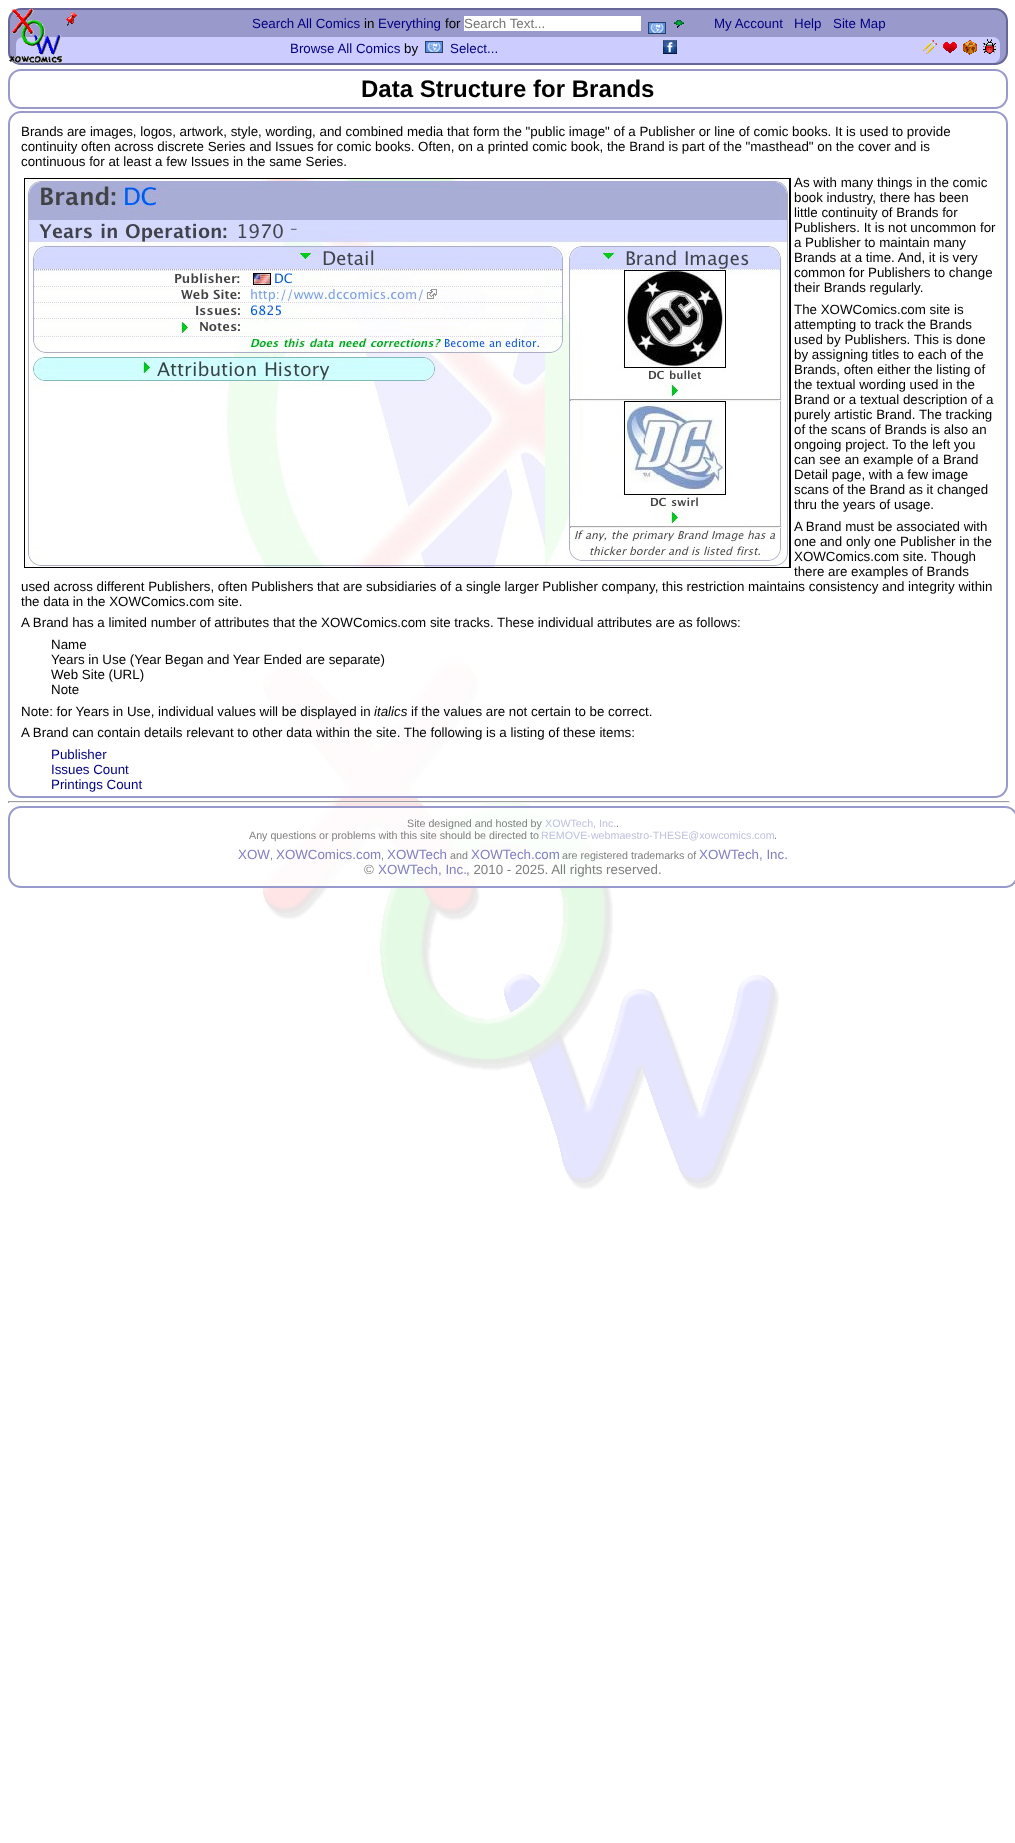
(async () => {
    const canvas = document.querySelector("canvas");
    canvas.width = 1015;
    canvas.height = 1843;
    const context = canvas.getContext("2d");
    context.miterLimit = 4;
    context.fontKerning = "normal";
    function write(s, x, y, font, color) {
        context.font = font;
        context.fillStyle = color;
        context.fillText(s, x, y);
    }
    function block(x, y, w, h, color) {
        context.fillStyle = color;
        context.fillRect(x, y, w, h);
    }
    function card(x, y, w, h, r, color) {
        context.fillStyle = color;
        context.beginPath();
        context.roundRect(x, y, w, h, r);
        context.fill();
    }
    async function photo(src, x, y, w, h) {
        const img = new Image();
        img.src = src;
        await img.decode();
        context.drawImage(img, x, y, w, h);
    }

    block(0, 0, 1015, 1843, "rgb(255, 255, 255)");
    await photo("media/1.png", 263, 659, 516, 531);
    context.fillStyle = "rgb(153, 153, 204)";
    context.beginPath();
    context.roundRect(9, 9, 998, 55, 12);
    context.fill();
    context.strokeStyle = "rgb(102, 102, 153)";
    context.lineWidth = 2;
    context.stroke();
    card(16, 37, 984, 26, 7, "rgb(204, 204, 255)");
    await photo("media/2.png", 9, 8, 54, 56);
    await photo("media/3.png", 66, 12, 11, 14);
    write("Search All Comics", 252, 28, "13.33px Liberation Sans", "rgb(0, 0, 128)");
    write("in", 364, 28, "13.33px Liberation Sans", "rgb(0, 0, 0)");
    write("Everything", 378, 28, "13.33px Liberation Sans", "rgb(0, 0, 128)");
    write("for", 445, 28, "13.33px Liberation Sans", "rgb(0, 0, 0)");
    block(464, 16, 177, 15, "rgb(255, 255, 255)");
    write("Search Text...", 464, 28, "13.33px Liberation Sans", "rgb(117, 117, 117)");
    await photo("media/4.png", 648, 22, 18, 12);
    await photo("media/5.png", 674, 20, 10, 8);
    write("My Account", 714, 28, "13.33px Liberation Sans", "rgb(0, 0, 128)");
    write("Help", 794, 28, "13.33px Liberation Sans", "rgb(0, 0, 128)");
    write("Site Map", 833, 28, "13.33px Liberation Sans", "rgb(0, 0, 128)");
    write("Browse All Comics", 290, 53, "13.33px Liberation Sans", "rgb(0, 0, 128)");
    write("by", 404, 53, "13.33px Liberation Sans", "rgb(0, 0, 0)");
    await photo("media/4.png", 425, 41, 18, 12);
    write("Select...", 450, 53, "13.33px Liberation Sans", "rgb(0, 0, 128)");
    await photo("media/6.png", 663, 40, 14, 14);
    await photo("media/7.png", 923, 40, 14, 14);
    await photo("media/8.png", 943, 42, 14, 11);
    await photo("media/9.png", 963, 40, 14, 15);
    await photo("media/10.png", 983, 39, 13, 15);
    context.beginPath();
    context.roundRect(9, 70, 998, 38, 12);
    context.strokeStyle = "rgb(153, 153, 204)";
    context.stroke();
    write("Data Structure for Brands", 361, 97, "bold 24px Liberation Sans", "rgb(0, 0, 0)");
    context.fillStyle = "rgba(255, 255, 255, 0.85)";
    context.beginPath();
    context.roundRect(9, 112, 998, 685, 12);
    context.fill();
    context.stroke();
    write("Brands are images, logos, artwork, style, wording, and combined media that form the \"public image\" of a Publisher or line of comic books. It is used to provide", 21, 136, "13.33px Liberation Sans", "rgb(0, 0, 0)");
    write("continuity often across discrete Series and Issues for comic books. Often, on a printed comic book, the Brand is part of the \"masthead\" on the cover and is", 21, 151, "13.33px Liberation Sans", "rgb(0, 0, 0)");
    write("continuous for at least a few Issues in the same Series.", 21, 166, "13.33px Liberation Sans", "rgb(0, 0, 0)");
    context.strokeStyle = "rgb(0, 0, 0)";
    context.lineWidth = 1;
    context.strokeRect(24.5, 178.5, 766, 389);
    await photo("media/11.png", 25, 179, 765, 388);
    write("As with many things in the comic", 794, 187, "13.33px Liberation Sans", "rgb(0, 0, 0)");
    write("book industry, there has been", 794, 202, "13.33px Liberation Sans", "rgb(0, 0, 0)");
    write("little continuity of Brands for", 794, 217, "13.33px Liberation Sans", "rgb(0, 0, 0)");
    write("Publishers. It is not uncommon for", 794, 232, "13.33px Liberation Sans", "rgb(0, 0, 0)");
    write("a Publisher to maintain many", 794, 247, "13.33px Liberation Sans", "rgb(0, 0, 0)");
    write("Brands at a time. And, it is very", 794, 262, "13.33px Liberation Sans", "rgb(0, 0, 0)");
    write("common for Publishers to change", 794, 277, "13.33px Liberation Sans", "rgb(0, 0, 0)");
    write("their Brands regularly.", 794, 292, "13.33px Liberation Sans", "rgb(0, 0, 0)");
    write("The XOWComics.com site is", 794, 314, "13.33px Liberation Sans", "rgb(0, 0, 0)");
    write("attempting to track the Brands", 794, 329, "13.33px Liberation Sans", "rgb(0, 0, 0)");
    write("used by Publishers. This is done", 794, 344, "13.33px Liberation Sans", "rgb(0, 0, 0)");
    write("by assigning titles to each of the", 794, 359, "13.33px Liberation Sans", "rgb(0, 0, 0)");
    write("Brands, often either the listing of", 794, 374, "13.33px Liberation Sans", "rgb(0, 0, 0)");
    write("the textual wording used in the", 794, 389, "13.33px Liberation Sans", "rgb(0, 0, 0)");
    write("Brand or a textual description of a", 794, 404, "13.33px Liberation Sans", "rgb(0, 0, 0)");
    write("purely artistic Brand. The tracking", 794, 419, "13.33px Liberation Sans", "rgb(0, 0, 0)");
    write("of the scans of Brands is also an", 794, 434, "13.33px Liberation Sans", "rgb(0, 0, 0)");
    write("ongoing project. To the left you", 794, 449, "13.33px Liberation Sans", "rgb(0, 0, 0)");
    write("can see an example of a Brand", 794, 464, "13.33px Liberation Sans", "rgb(0, 0, 0)");
    write("Detail page, with a few image", 794, 479, "13.33px Liberation Sans", "rgb(0, 0, 0)");
    write("scans of the Brand as it changed", 794, 494, "13.33px Liberation Sans", "rgb(0, 0, 0)");
    write("thru the years of usage.", 794, 509, "13.33px Liberation Sans", "rgb(0, 0, 0)");
    write("A Brand must be associated with", 794, 531, "13.33px Liberation Sans", "rgb(0, 0, 0)");
    write("one and only one Publisher in the", 794, 546, "13.33px Liberation Sans", "rgb(0, 0, 0)");
    write("XOWComics.com site. Though", 794, 561, "13.33px Liberation Sans", "rgb(0, 0, 0)");
    write("there are examples of Brands", 794, 576, "13.33px Liberation Sans", "rgb(0, 0, 0)");
    write("used across different Publishers, often Publishers that are subsidiaries of a single larger Publisher company, this restriction maintains consistency and integrity within", 21, 591, "13.33px Liberation Sans", "rgb(0, 0, 0)");
    write("the data in the XOWComics.com site.", 21, 606, "13.33px Liberation Sans", "rgb(0, 0, 0)");
    write("A Brand has a limited number of attributes that the XOWComics.com site tracks. These individual attributes are as follows:", 21, 627, "13.33px Liberation Sans", "rgb(0, 0, 0)");
    write("Name", 51, 649, "13.33px Liberation Sans", "rgb(0, 0, 0)");
    write("Years in Use (Year Began and Year Ended are separate)", 51, 664, "13.33px Liberation Sans", "rgb(0, 0, 0)");
    write("Web Site (URL)", 51, 679, "13.33px Liberation Sans", "rgb(0, 0, 0)");
    write("Note", 51, 694, "13.33px Liberation Sans", "rgb(0, 0, 0)");
    write("Note: for Years in Use, individual values will be displayed in", 21, 716, "13.33px Liberation Sans", "rgb(0, 0, 0)");
    write("italics", 374, 716, "italic 13.33px Liberation Sans", "rgb(0, 0, 0)");
    write("if the values are not certain to be correct.", 411, 716, "13.33px Liberation Sans", "rgb(0, 0, 0)");
    write("A Brand can contain details relevant to other data within the site. The following is a listing of these items:", 21, 737, "13.33px Liberation Sans", "rgb(0, 0, 0)");
    write("Publisher", 51, 759, "13.33px Liberation Sans", "rgb(0, 0, 128)");
    write("Issues Count", 51, 774, "13.33px Liberation Sans", "rgb(0, 0, 128)");
    write("Printings Count", 51, 789, "13.33px Liberation Sans", "rgb(0, 0, 128)");
    block(8, 801, 1002, 1, "rgb(159, 159, 159)");
    block(1009, 801, 1, 2, "rgb(238, 238, 238)");
    block(8, 802, 1002, 1, "rgb(238, 238, 238)");
    block(8, 801, 1, 2, "rgb(159, 159, 159)");
    context.fillStyle = "rgba(255, 255, 255, 0.85)";
    context.beginPath();
    context.roundRect(9, 807, 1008, 80, 12);
    context.fill();
    context.strokeStyle = "rgb(153, 153, 204)";
    context.lineWidth = 2;
    context.stroke();
    write("Site designed and hosted by", 407, 827, "10.7px Liberation Sans", "rgb(126, 127, 126)");
    write("XOWTech, Inc.", 545, 827, "10.7px Liberation Sans", "rgb(190, 191, 222)");
    write(".", 616, 827, "10.7px Liberation Sans", "rgb(126, 127, 126)");
    write("Any questions or problems with this site should be directed to", 249, 839, "10.7px Liberation Sans", "rgb(126, 127, 126)");
    write("REMOVE-webmaestro-THESE@xowcomics.com", 541, 839, "10.7px Liberation Sans", "rgb(190, 191, 222)");
    write(".", 774, 839, "10.7px Liberation Sans", "rgb(126, 127, 126)");
    write("XOW", 238, 859, "13.33px Liberation Sans", "rgb(128, 128, 192)");
    write(",", 270, 859, "10.7px Liberation Sans", "rgb(126, 127, 126)");
    write("XOWComics.com", 276, 859, "13.33px Liberation Sans", "rgb(128, 128, 192)");
    write(",", 381, 859, "10.7px Liberation Sans", "rgb(126, 127, 126)");
    write("XOWTech", 387, 859, "13.33px Liberation Sans", "rgb(128, 128, 192)");
    write("and", 450, 859, "10.7px Liberation Sans", "rgb(126, 127, 126)");
    write("XOWTech.com", 471, 859, "13.33px Liberation Sans", "rgb(128, 128, 192)");
    write("are registered trademarks of", 562, 859, "10.7px Liberation Sans", "rgb(126, 127, 126)");
    write("XOWTech, Inc.", 699, 859, "13.33px Liberation Sans", "rgb(128, 128, 192)");
    write("©", 364, 874, "13.33px Liberation Sans", "rgb(126, 127, 126)");
    write("XOWTech, Inc.", 378, 874, "13.33px Liberation Sans", "rgb(128, 128, 192)");
    write(", 2010 - 2025. All rights reserved.", 466, 874, "13.33px Liberation Sans", "rgb(126, 127, 126)");
})();
